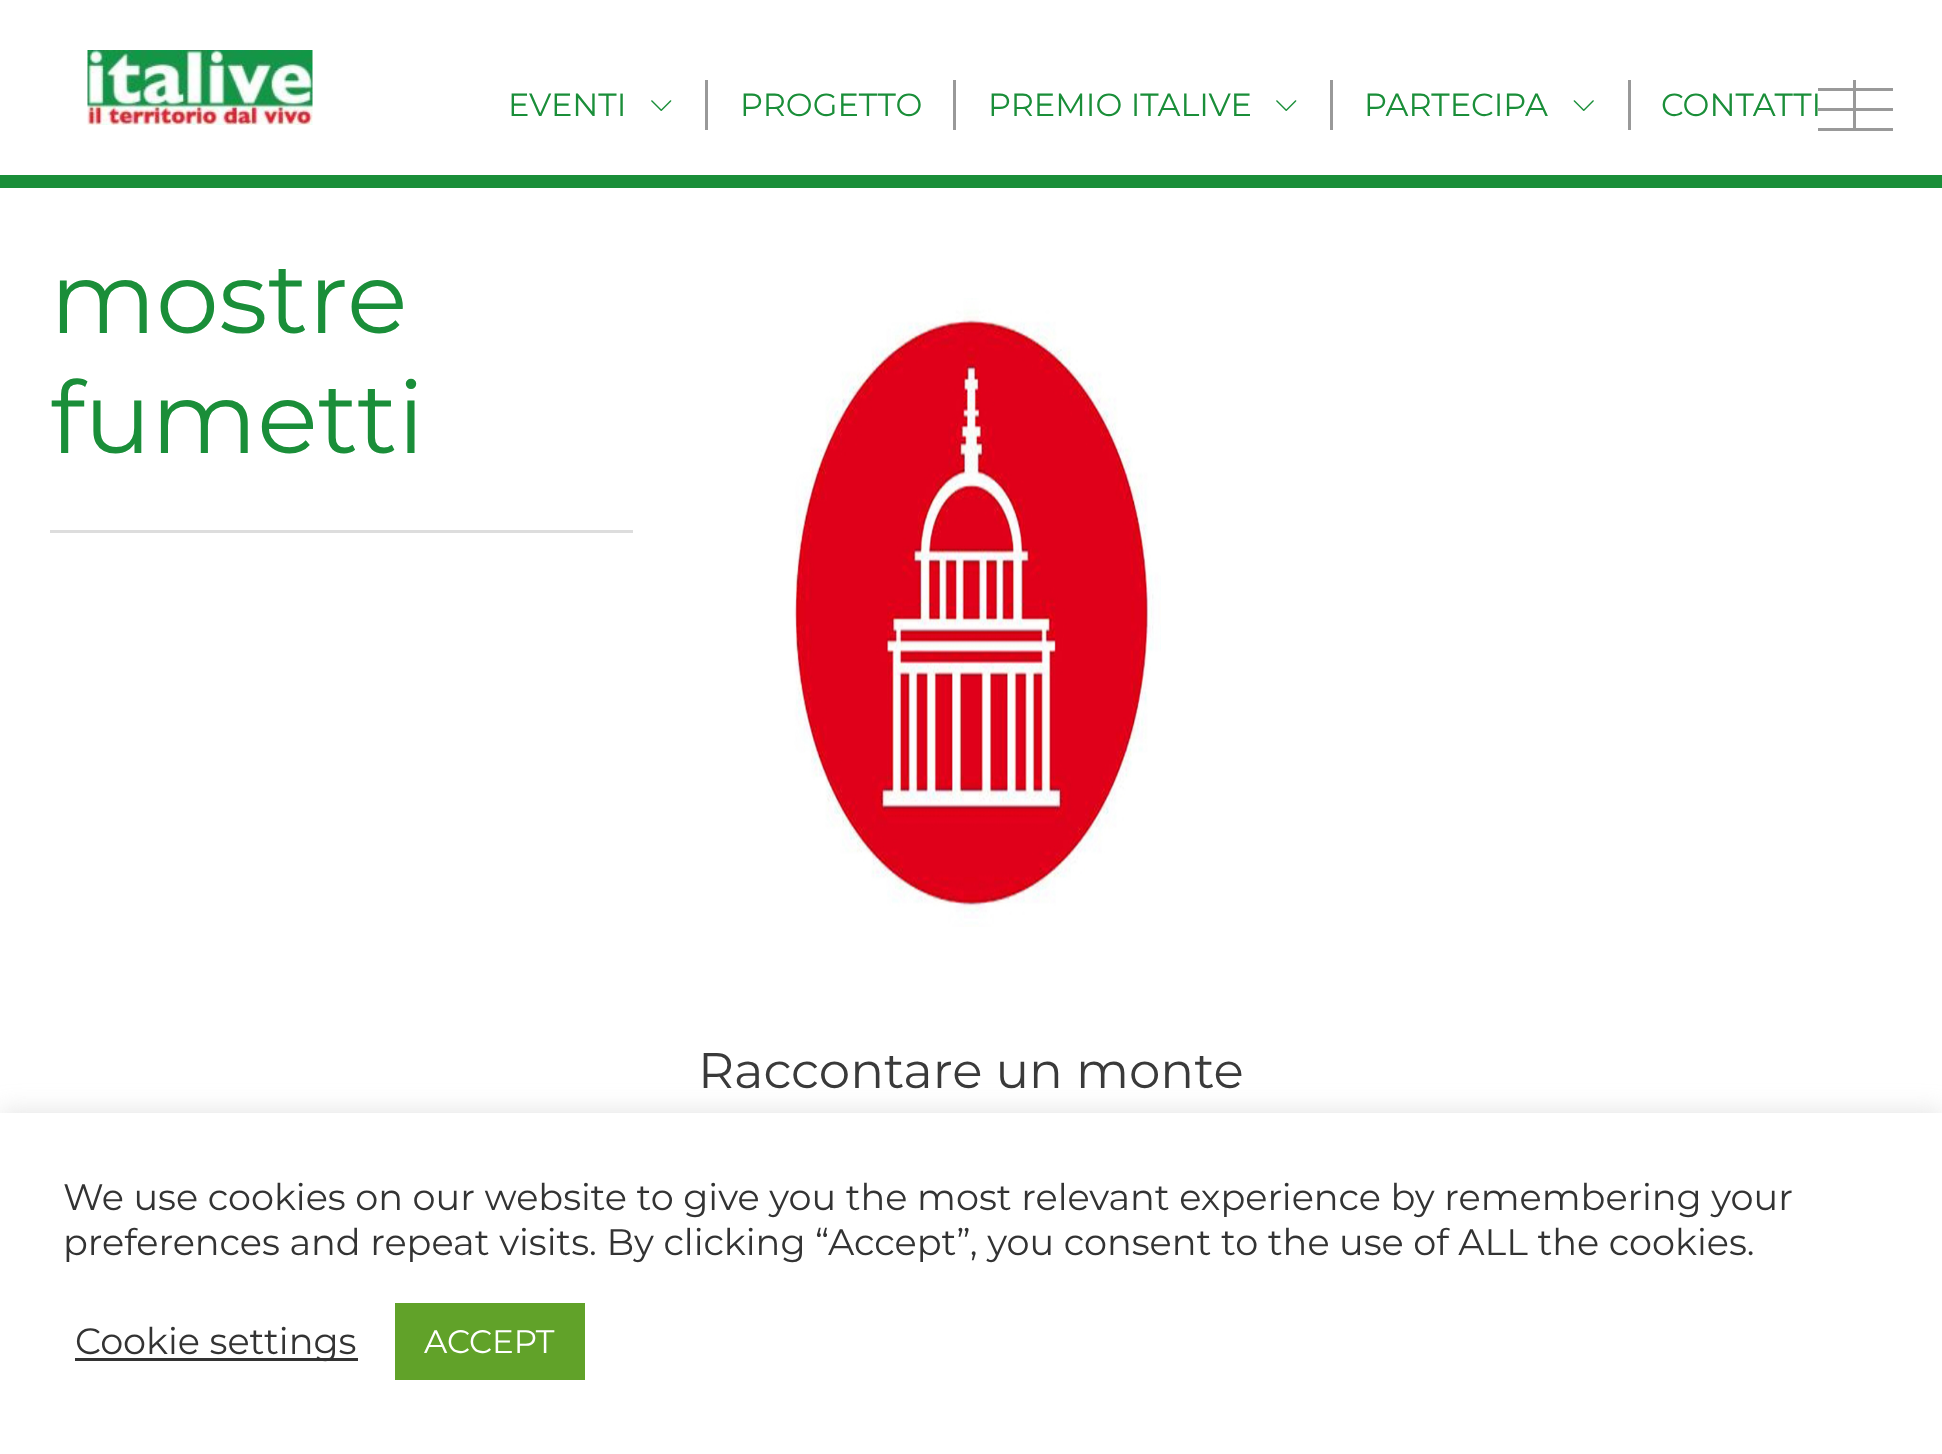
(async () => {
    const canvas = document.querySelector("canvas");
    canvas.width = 1942;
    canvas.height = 1454;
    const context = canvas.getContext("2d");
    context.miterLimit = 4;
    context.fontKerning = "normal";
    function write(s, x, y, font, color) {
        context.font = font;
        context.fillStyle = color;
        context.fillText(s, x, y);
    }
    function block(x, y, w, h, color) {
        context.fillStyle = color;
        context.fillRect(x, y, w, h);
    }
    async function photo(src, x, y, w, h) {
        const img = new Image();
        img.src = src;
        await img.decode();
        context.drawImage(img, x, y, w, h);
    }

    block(0, 0, 1942, 1454, "rgb(255, 255, 255)");
    block(0, 175, 1942, 13, "rgb(26, 142, 57)");
    await photo("media/1.png", 87, 50, 226, 75);
    block(705, 80, 3, 50, "rgb(153, 153, 153)");
    write("EVENTI", 508, 116, "32px Montserrat", "rgb(26, 142, 57)");
    await photo("media/2.png", 651, 100, 21, 11);
    block(953, 80, 3, 50, "rgb(153, 153, 153)");
    write("PROGETTO", 740, 116, "32px Montserrat", "rgb(26, 142, 57)");
    block(1330, 80, 3, 50, "rgb(153, 153, 153)");
    write("PREMIO ITALIVE", 988, 116, "32px Montserrat", "rgb(26, 142, 57)");
    await photo("media/2.png", 1276, 100, 21, 11);
    block(1628, 80, 3, 50, "rgb(153, 153, 153)");
    write("PARTECIPA", 1364, 116, "32px Montserrat", "rgb(26, 142, 57)");
    await photo("media/3.png", 1573, 100, 21, 11);
    block(1853, 80, 3, 50, "rgb(153, 153, 153)");
    write("CONTATTI", 1661, 116, "32px Montserrat", "rgb(26, 142, 57)");
    block(50, 530, 583, 3, "rgb(221, 221, 221)");
    write("mostre", 50, 333, "100px Montserrat", "rgb(26, 142, 57)");
    write("fumetti", 50, 453, "100px Montserrat", "rgb(26, 142, 57)");
    await photo("media/4.png", 794, 298, 367, 629);
    write("Raccontare un monte", 698, 1088, "50px Montserrat", "rgb(58, 58, 58)");
    block(1818, 88, 75, 3, "rgb(153, 153, 153)");
    block(1818, 108, 75, 3, "rgb(153, 153, 153)");
    block(1818, 128, 75, 3, "rgb(153, 153, 153)");
    context.fillStyle = "rgba(172, 171, 171, 0.3)";
    context.filter = "blur(12.5px)";
    context.beginPath();
    context.rect(0, 1110, 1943, 343);
    context.fill();
    context.filter = "none";
    block(0, 1113, 1942, 341, "rgb(255, 255, 255)");
    write("We use cookies on our website to give you the most relevant experience by remembering your", 63, 1210, "36.65px Montserrat", "rgb(51, 51, 51)");
    write("preferences and repeat visits. By clicking “Accept”, you consent to the use of ALL the cookies.", 63, 1255, "36.65px Montserrat", "rgb(51, 51, 51)");
    block(75, 1358, 283, 3, "rgb(51, 51, 51)");
    write("Cookie settings", 75, 1354, "36.65px Montserrat", "rgb(51, 51, 51)");
    block(395, 1303, 190, 77, "rgb(97, 162, 41)");
    write("ACCEPT", 424, 1353, "32.5px Montserrat", "rgb(255, 255, 255)");
})();
